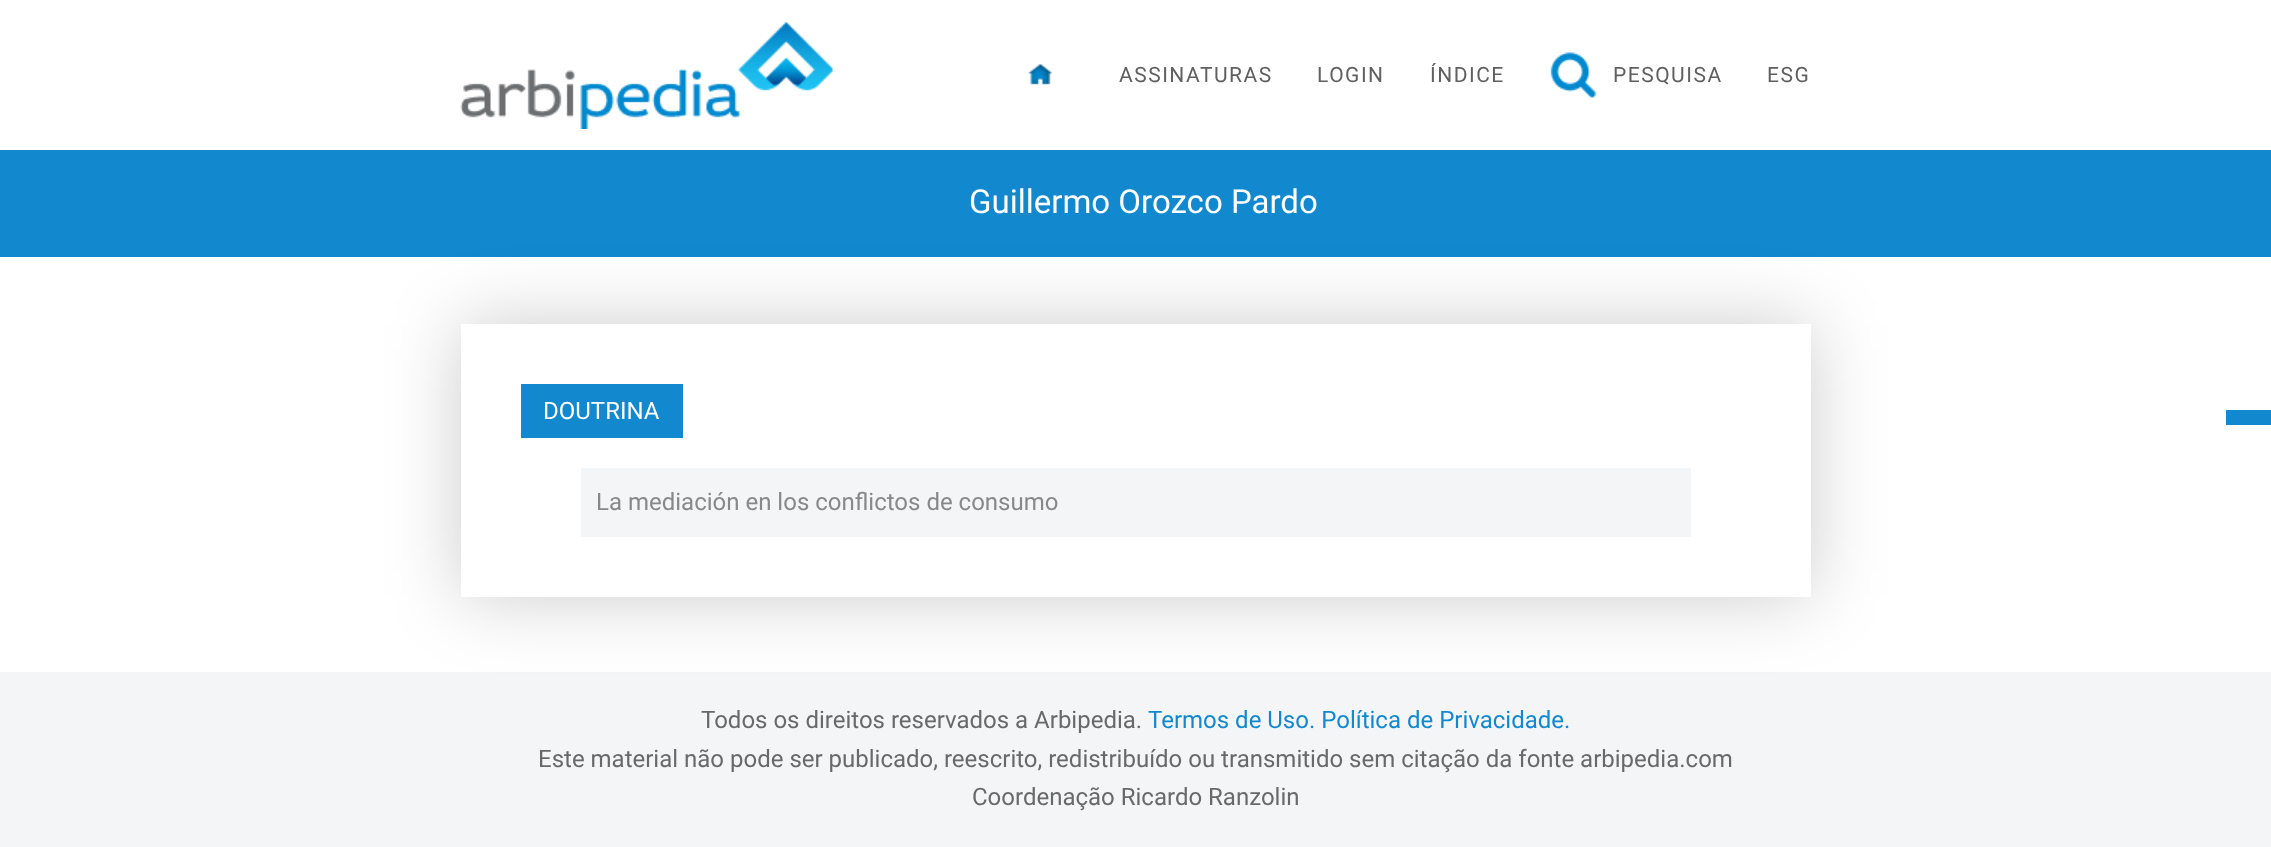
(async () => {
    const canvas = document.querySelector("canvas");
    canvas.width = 2271;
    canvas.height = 847;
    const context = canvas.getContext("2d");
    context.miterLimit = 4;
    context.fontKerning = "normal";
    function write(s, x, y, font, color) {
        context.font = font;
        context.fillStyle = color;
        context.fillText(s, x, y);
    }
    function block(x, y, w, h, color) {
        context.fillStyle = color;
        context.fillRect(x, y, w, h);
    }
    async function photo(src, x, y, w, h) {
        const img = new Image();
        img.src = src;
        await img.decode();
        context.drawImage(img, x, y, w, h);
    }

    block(0, 0, 2271, 847, "rgb(255, 255, 255)");
    await photo("media/1.png", 460, 22, 373, 107);
    await photo("media/2.png", 1028, 64, 24, 21);
    context.letterSpacing = "1.5px";
    write("ASSINATURAS", 1119, 82, "21px Roboto", "rgb(96, 96, 96)");
    write("LOGIN", 1317, 82, "21px Roboto", "rgb(96, 96, 96)");
    write("ÍNDICE", 1430, 82, "21px Roboto", "rgb(96, 96, 96)");
    await photo("media/3.png", 1550, 52, 47, 46);
    write("PESQUISA", 1613, 82, "21px Roboto", "rgb(96, 96, 96)");
    write("ESG", 1767, 82, "21px Roboto", "rgb(96, 96, 96)");
    block(0, 150, 2271, 107, "rgb(18, 136, 206)");
    context.letterSpacing = "0px";
    write("Guillermo Orozco Pardo", 969, 213, "33px Roboto", "rgb(255, 255, 255)");
    block(0, 672, 2271, 175, "rgb(244, 245, 247)");
    context.fillStyle = "rgba(0, 0, 0, 0.2)";
    context.filter = "blur(37.5px)";
    context.beginPath();
    context.rect(461, 324, 1350, 273);
    context.fill();
    context.filter = "none";
    block(461, 324, 1350, 273, "rgb(255, 255, 255)");
    block(521, 384, 162, 54, "rgb(18, 136, 206)");
    write("DOUTRINA", 543, 419, "24px Roboto", "rgb(255, 255, 255)");
    block(581, 468, 1110, 69, "rgb(244, 245, 247)");
    write("La mediación en los conflictos de consumo", 596, 510, "24px Roboto", "rgb(136, 136, 136)");
    block(2226, 410, 45, 15, "rgb(18, 136, 206)");
    write("Todos os direitos reservados a Arbipedia.", 701, 728, "24px Roboto", "rgb(105, 105, 105)");
    write("Termos de Uso. Política de Privacidade.", 1148, 728, "24px Roboto", "rgb(18, 137, 206)");
    write("Este material não pode ser publicado, reescrito, redistribuído ou transmitido sem citação da fonte arbipedia.com", 538, 767, "24px Roboto", "rgb(105, 105, 105)");
    write("Coordenação Ricardo Ranzolin", 972, 805, "24px Roboto", "rgb(105, 105, 105)");
})();
